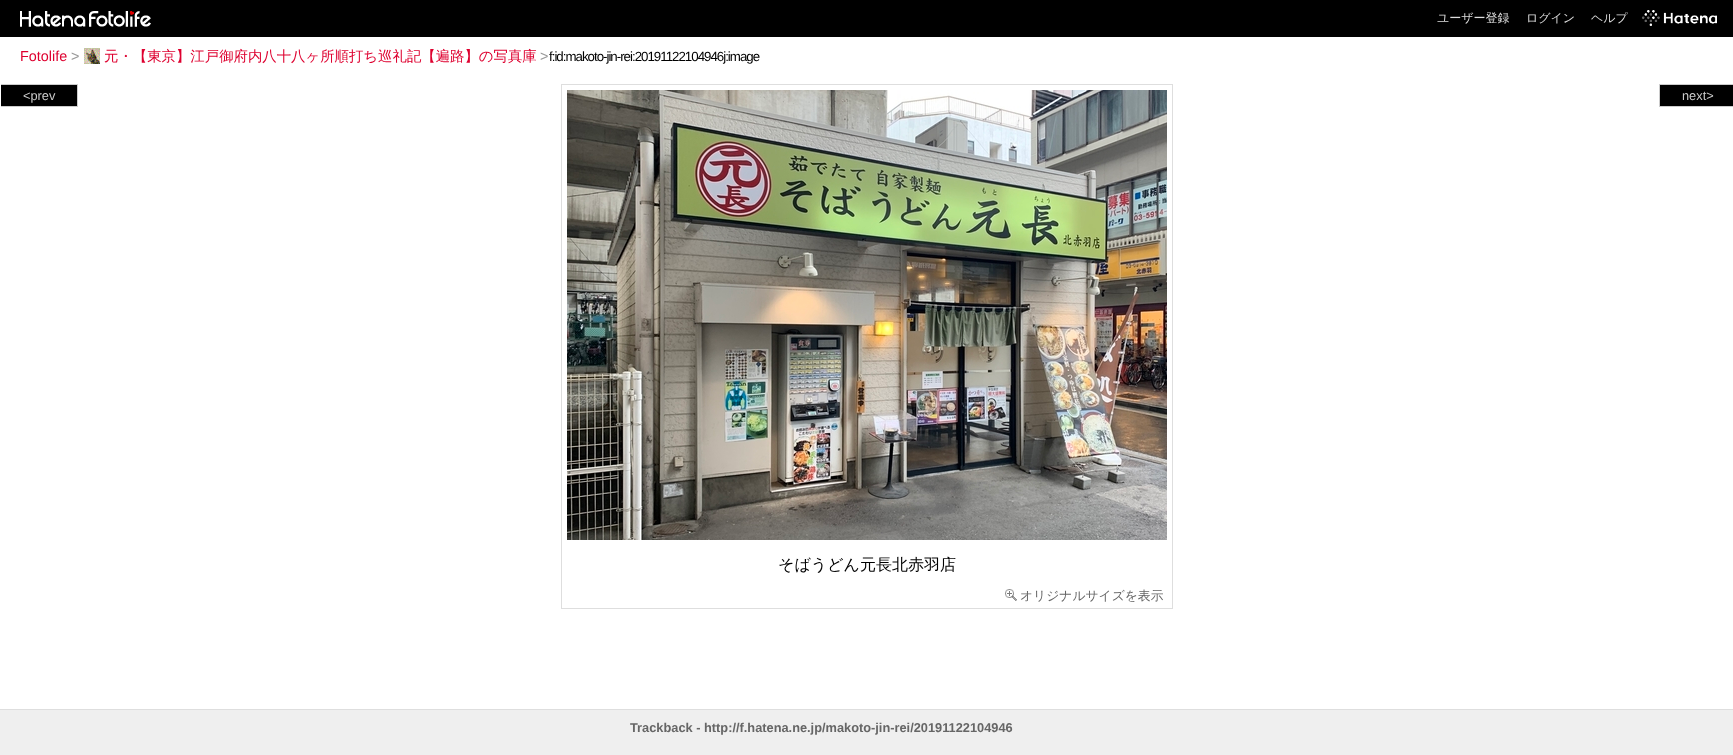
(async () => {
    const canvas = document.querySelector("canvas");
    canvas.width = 1733;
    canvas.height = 755;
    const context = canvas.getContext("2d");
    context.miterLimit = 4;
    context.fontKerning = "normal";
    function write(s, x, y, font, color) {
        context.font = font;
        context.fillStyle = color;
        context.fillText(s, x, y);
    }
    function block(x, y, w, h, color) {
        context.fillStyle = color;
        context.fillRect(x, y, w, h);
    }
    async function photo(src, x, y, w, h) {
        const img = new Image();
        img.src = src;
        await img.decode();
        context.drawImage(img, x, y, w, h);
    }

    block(0, 0, 1733, 755, "rgb(239, 239, 239)");
    block(0, 0, 1733, 37, "rgb(0, 0, 0)");
    await photo("media/1.png", 20, 11, 66, 16);
    await photo("media/2.png", 89, 11, 62, 16);
    write("ユーザー登録", 1437, 22, "500 12px WenQuanYi Zen Hei", "rgb(221, 221, 221)");
    write("ログイン", 1526, 22, "500 12px WenQuanYi Zen Hei", "rgb(221, 221, 221)");
    write("ヘルプ", 1591, 22, "500 12px WenQuanYi Zen Hei", "rgb(221, 221, 221)");
    await photo("media/3.png", 1642, 10, 75, 16);
    block(0, 37, 1733, 672, "rgb(255, 255, 255)");
    write("Fotolife", 20, 61, "14.4px Liberation Sans", "rgb(222, 0, 47)");
    write(">", 71, 61, "14.4px Liberation Sans", "rgb(153, 153, 153)");
    await photo("media/4.png", 84, 48, 16, 16);
    write("元・【東京】江戸御府内八十八ヶ所順打ち巡礼記【遍路】の写真庫", 104, 61, "500 14.4px WenQuanYi Zen Hei", "rgb(222, 0, 47)");
    write(">", 540, 61, "14.4px Liberation Sans", "rgb(153, 153, 153)");
    context.letterSpacing = "-1px";
    write("f:id:makoto-jin-rei:20191122104946j:image", 549, 61, "13.3px Liberation Sans", "rgb(0, 0, 0)");
    block(0, 709, 1733, 1, "rgb(222, 222, 222)");
    block(1, 85, 76, 21, "rgb(0, 0, 0)");
    block(1, 84, 77, 1, "rgb(204, 204, 204)");
    block(77, 84, 1, 23, "rgb(204, 204, 204)");
    block(1, 106, 77, 1, "rgb(204, 204, 204)");
    context.letterSpacing = "0px";
    write("<prev", 23, 100, "12.8px Liberation Sans", "rgb(204, 204, 204)");
    block(1660, 85, 73, 21, "rgb(0, 0, 0)");
    block(1659, 84, 74, 1, "rgb(204, 204, 204)");
    block(1659, 106, 74, 1, "rgb(204, 204, 204)");
    block(1659, 84, 1, 23, "rgb(204, 204, 204)");
    write("next>", 1682, 100, "12.8px Liberation Sans", "rgb(204, 204, 204)");
    context.strokeStyle = "rgb(222, 222, 222)";
    context.strokeRect(561.5, 84.5, 611, 524);
    await photo("media/5.png", 567, 90, 600, 450);
    write("そばうどん元長北赤羽店", 778, 570, "500 16px WenQuanYi Zen Hei", "rgb(0, 0, 0)");
    await photo("media/6.png", 1005, 589, 12, 12);
    write("オリジナルサイズを表示", 1020, 600, "500 12.8px WenQuanYi Zen Hei", "rgb(102, 102, 102)");
    write("Trackback - http://f.hatena.ne.jp/makoto-jin-rei/20191122104946", 630, 732, "bold 12.8px Liberation Sans", "rgb(102, 102, 102)");
})();
